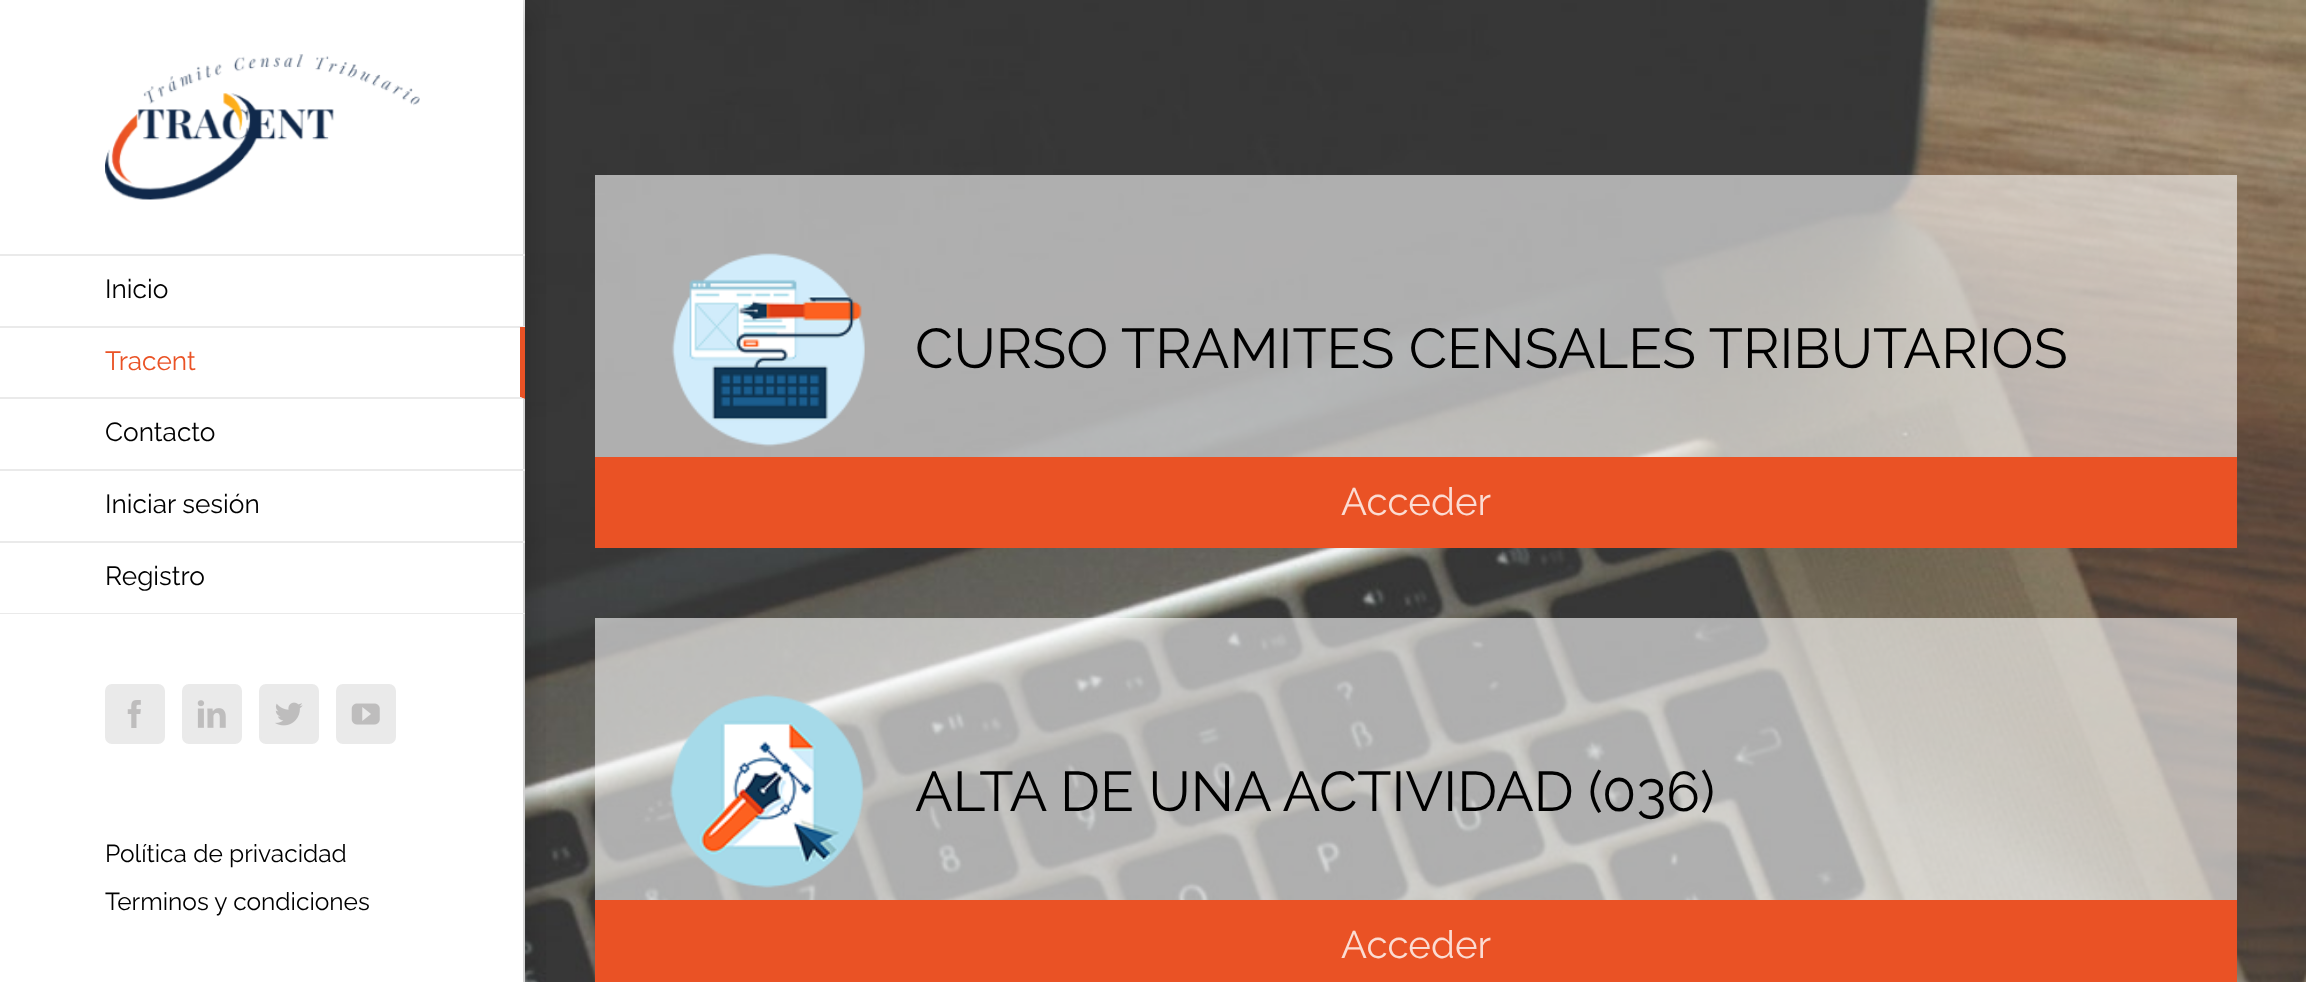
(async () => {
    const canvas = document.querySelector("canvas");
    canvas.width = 2306;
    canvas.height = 982;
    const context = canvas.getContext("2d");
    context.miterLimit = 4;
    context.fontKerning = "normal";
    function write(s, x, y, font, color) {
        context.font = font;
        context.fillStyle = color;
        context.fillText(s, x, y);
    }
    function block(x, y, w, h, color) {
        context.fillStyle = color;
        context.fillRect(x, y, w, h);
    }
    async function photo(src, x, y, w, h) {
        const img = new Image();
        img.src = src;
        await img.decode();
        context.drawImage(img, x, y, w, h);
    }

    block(0, 0, 2306, 982, "rgb(255, 255, 255)");
    await photo("media/1.png", 105, 54, 315, 146);
    block(523, 0, 2, 982, "rgb(234, 234, 234)");
    await photo("media/6.png", 525, 0, 1781, 982);
    context.save();
    context.beginPath();
    context.rect(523, 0, 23, 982);
    context.clip();
    context.fillStyle = "rgba(0, 0, 0, 0.14)";
    context.filter = "blur(13px)";
    context.beginPath();
    context.rect(506, 9, 26, 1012);
    context.fill();
    context.filter = "none";
    context.restore();
    block(0, 254, 525, 2, "rgb(234, 234, 234)");
    block(0, 326, 525, 2, "rgb(234, 234, 234)");
    write("Inicio", 105, 298, "26.25px Raleway", "rgb(0, 0, 0)");
    context.fillStyle = "rgb(234, 82, 37)";
    context.beginPath();
    context.moveTo(525, 327);
    context.lineTo(525, 399);
    context.lineTo(520, 397);
    context.lineTo(520, 327);
    context.closePath();
    context.fill();
    context.fillStyle = "rgb(234, 234, 234)";
    context.beginPath();
    context.moveTo(525, 399);
    context.lineTo(0, 399);
    context.lineTo(0, 397);
    context.lineTo(520, 397);
    context.closePath();
    context.fill();
    write("Tracent", 105, 370, "26.25px Raleway", "rgb(234, 82, 37)");
    block(0, 469, 525, 2, "rgb(234, 234, 234)");
    write("Contacto", 105, 441, "26.25px Raleway", "rgb(0, 0, 0)");
    block(0, 541, 525, 2, "rgb(234, 234, 234)");
    write("Iniciar sesión", 105, 513, "26.25px Raleway", "rgb(0, 0, 0)");
    block(0, 613, 525, 1, "rgb(234, 234, 234)");
    write("Registro", 105, 585, "26.25px Raleway", "rgb(0, 0, 0)");
    context.fillStyle = "rgb(234, 234, 234)";
    context.beginPath();
    context.roundRect(106, 685, 58, 58, 6);
    context.fill();
    context.strokeStyle = "rgb(234, 234, 234)";
    context.lineWidth = 2;
    context.stroke();
    await photo("media/2.png", 127, 700, 14, 28);
    context.beginPath();
    context.roundRect(183, 685, 58, 58, 6);
    context.fill();
    context.stroke();
    await photo("media/3.png", 197, 700, 29, 28);
    context.beginPath();
    context.roundRect(260, 685, 58, 58, 6);
    context.fill();
    context.stroke();
    await photo("media/4.png", 275, 702, 28, 24);
    context.beginPath();
    context.roundRect(337, 685, 58, 58, 6);
    context.fill();
    context.stroke();
    await photo("media/5.png", 351, 703, 29, 22);
    write("Política de privacidad", 105, 862, "24.5px Raleway", "rgb(0, 0, 0)");
    write("Terminos y condiciones", 105, 910, "24.5px Raleway", "rgb(0, 0, 0)");
    block(595, 175, 1642, 282, "rgba(255, 255, 255, 0.6)");
    await photo("media/7.png", 671, 253, 194, 194);
    write("CURSO TRAMITES CENSALES TRIBUTARIOS", 915, 368, "56px Raleway", "rgb(0, 0, 0)");
    block(595, 457, 1642, 91, "rgb(234, 82, 37)");
    write("Acceder", 1341, 515, "38.5px Raleway", "rgb(251, 220, 211)");
    block(595, 618, 1642, 282, "rgba(255, 255, 255, 0.6)");
    await photo("media/8.png", 670, 694, 194, 194);
    write("ALTA DE UNA ACTIVIDAD (036)", 915, 811, "56px Raleway", "rgb(0, 0, 0)");
    block(595, 900, 1642, 82, "rgb(234, 82, 37)");
    write("Acceder", 1341, 958, "38.5px Raleway", "rgb(251, 220, 211)");
})();
